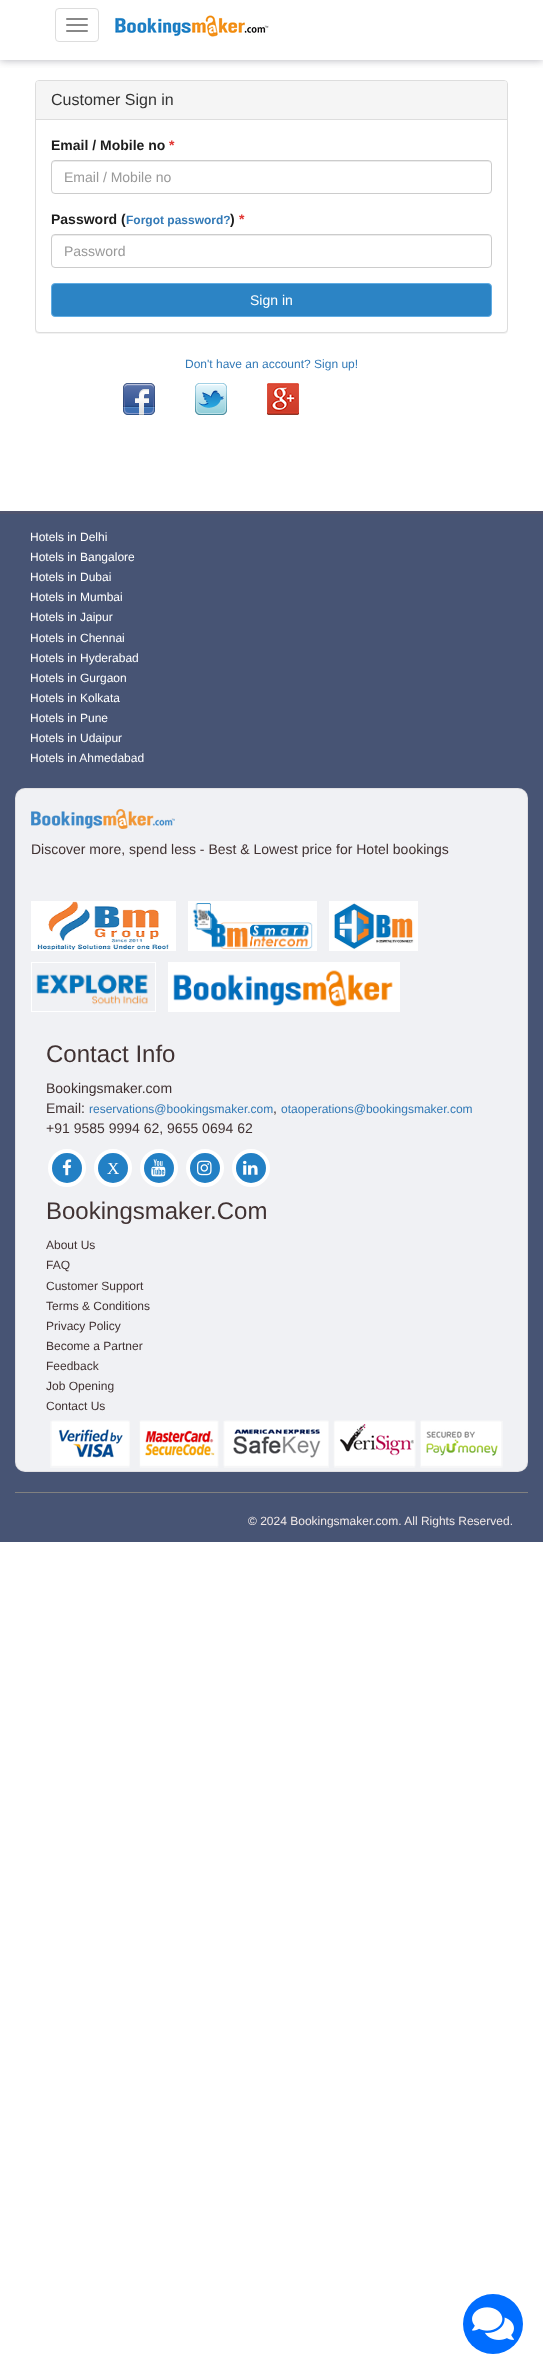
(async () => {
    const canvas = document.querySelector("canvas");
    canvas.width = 543;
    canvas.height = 2374;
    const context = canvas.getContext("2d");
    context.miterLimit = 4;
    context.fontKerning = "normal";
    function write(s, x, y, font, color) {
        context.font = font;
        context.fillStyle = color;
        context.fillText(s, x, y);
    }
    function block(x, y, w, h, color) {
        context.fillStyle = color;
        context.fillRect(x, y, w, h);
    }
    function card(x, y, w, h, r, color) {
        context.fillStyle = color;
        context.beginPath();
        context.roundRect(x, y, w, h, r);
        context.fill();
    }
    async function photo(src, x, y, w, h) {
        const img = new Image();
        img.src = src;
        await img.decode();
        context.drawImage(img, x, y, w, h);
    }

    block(0, 0, 543, 2374, "rgb(255, 255, 255)");
    context.save();
    context.beginPath();
    context.rect(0, 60, 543, 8);
    context.clip();
    context.fillStyle = "rgb(175, 175, 183)";
    context.filter = "blur(4px)";
    context.beginPath();
    context.rect(0, 0, 543, 60);
    context.fill();
    context.filter = "none";
    context.restore();
    context.beginPath();
    context.roundRect(55.5, 8.5, 43, 33, 3.5);
    context.strokeStyle = "rgb(221, 221, 221)";
    context.stroke();
    card(66, 18, 22, 2, 1, "rgb(136, 136, 136)");
    card(66, 24, 22, 2, 1, "rgb(136, 136, 136)");
    card(66, 30, 22, 2, 1, "rgb(136, 136, 136)");
    await photo("media/1.png", 115, 15, 154, 22);
    context.fillStyle = "rgba(0, 0, 0, 0.05)";
    context.filter = "blur(0.5px)";
    context.beginPath();
    context.roundRect(35, 81, 473, 253, 4);
    context.fill();
    context.filter = "none";
    context.fillStyle = "rgb(255, 255, 255)";
    context.beginPath();
    context.roundRect(35.5, 80.5, 472, 252, 3.5);
    context.fill();
    context.stroke();
    context.fillStyle = "rgb(245, 245, 245)";
    context.beginPath();
    context.roundRect(36, 81, 471, 39, [3, 3, 0, 0]);
    context.fill();
    block(36, 119, 471, 1, "rgb(221, 221, 221)");
    write("Customer Sign in", 51, 105, "16px Liberation Sans", "rgb(51, 51, 51)");
    write("Email / Mobile no", 51, 150, "bold 14px Liberation Sans", "rgb(28, 28, 28)");
    write("*", 169, 150, "bold 14px Liberation Sans", "rgb(225, 52, 49)");
    context.fillStyle = "rgb(236, 236, 236)";
    context.beginPath();
    context.moveTo(55, 162);
    context.lineTo(488, 162);
    context.bezierCurveTo(490, 162, 491, 163, 491, 165);
    context.bezierCurveTo(491, 163, 490, 161, 488, 161);
    context.lineTo(54, 161);
    context.lineTo(52, 163);
    context.lineTo(52, 165);
    context.bezierCurveTo(52, 163, 53, 162, 55, 162);
    context.closePath();
    context.fill();
    context.beginPath();
    context.roundRect(51.5, 160.5, 440, 33, 3.5);
    context.strokeStyle = "rgb(204, 204, 204)";
    context.stroke();
    write("Email / Mobile no", 64, 182, "14px Liberation Sans", "rgb(153, 153, 153)");
    write("Password (", 51, 224, "bold 14px Liberation Sans", "rgb(28, 28, 28)");
    write("Forgot password?", 126, 224, "bold 12px Liberation Sans", "rgb(51, 122, 183)");
    write(")", 230, 224, "bold 14px Liberation Sans", "rgb(28, 28, 28)");
    write("*", 239, 224, "bold 14px Liberation Sans", "rgb(225, 52, 49)");
    context.fillStyle = "rgb(236, 236, 236)";
    context.beginPath();
    context.moveTo(55, 236);
    context.lineTo(488, 236);
    context.bezierCurveTo(490, 236, 491, 237, 491, 239);
    context.bezierCurveTo(491, 237, 490, 235, 488, 235);
    context.lineTo(54, 235);
    context.lineTo(52, 237);
    context.lineTo(52, 239);
    context.bezierCurveTo(52, 237, 53, 236, 55, 236);
    context.closePath();
    context.fill();
    context.beginPath();
    context.roundRect(51.5, 234.5, 440, 33, 3.5);
    context.stroke();
    write("Password", 64, 256, "14px Liberation Sans", "rgb(153, 153, 153)");
    context.fillStyle = "rgb(44, 132, 197)";
    context.beginPath();
    context.roundRect(51.5, 283.5, 440, 33, 3.5);
    context.fill();
    context.strokeStyle = "rgb(96, 172, 227)";
    context.stroke();
    write("Sign in", 250, 305, "14px Liberation Sans", "rgb(255, 255, 255)");
    write("Don't have an account? Sign up!", 185, 368, "12px Liberation Sans", "rgb(51, 122, 183)");
    await photo("media/2.png", 123, 383, 32, 32);
    await photo("media/3.png", 195, 383, 32, 32);
    await photo("media/4.png", 267, 383, 32, 32);
    block(0, 514, 543, 1028, "rgb(71, 84, 116)");
    block(0, 511, 543, 3, "rgb(80, 84, 110)");
    write("Hotels in Delhi", 30, 541, "12px Liberation Sans", "rgb(255, 255, 255)");
    write("Hotels in Bangalore", 30, 561, "12px Liberation Sans", "rgb(255, 255, 255)");
    write("Hotels in Dubai", 30, 581, "12px Liberation Sans", "rgb(255, 255, 255)");
    write("Hotels in Mumbai", 30, 601, "12px Liberation Sans", "rgb(255, 255, 255)");
    write("Hotels in Jaipur", 30, 621, "12px Liberation Sans", "rgb(255, 255, 255)");
    write("Hotels in Chennai", 30, 642, "12px Liberation Sans", "rgb(255, 255, 255)");
    write("Hotels in Hyderabad", 30, 662, "12px Liberation Sans", "rgb(255, 255, 255)");
    write("Hotels in Gurgaon", 30, 682, "12px Liberation Sans", "rgb(255, 255, 255)");
    write("Hotels in Kolkata", 30, 702, "12px Liberation Sans", "rgb(255, 255, 255)");
    write("Hotels in Pune", 30, 722, "12px Liberation Sans", "rgb(255, 255, 255)");
    write("Hotels in Udaipur", 30, 742, "12px Liberation Sans", "rgb(255, 255, 255)");
    write("Hotels in Ahmedabad", 30, 762, "12px Liberation Sans", "rgb(255, 255, 255)");
    card(15, 788, 513, 684, 10, "rgb(240, 241, 244)");
    context.beginPath();
    context.roundRect(15.5, 788.5, 512, 683, 9.5);
    context.strokeStyle = "rgba(85, 67, 67, 0.09)";
    context.stroke();
    await photo("media/5.png", 31, 809, 144, 20);
    write("Discover more, spend less - Best & Lowest price for Hotel bookings", 31, 854, "14px Liberation Sans", "rgb(64, 50, 50)");
    await photo("media/6.png", 31, 901, 145, 50);
    block(188, 901, 129, 50, "rgb(255, 255, 255)");
    await photo("media/7.png", 329, 901, 89, 50);
    await photo("media/8.png", 192, 903, 121, 47);
    context.strokeStyle = "rgb(255, 255, 255)";
    context.strokeRect(31.5, 962.5, 124, 49);
    block(168, 962, 232, 50, "rgb(255, 255, 255)");
    await photo("media/9.png", 36, 974, 112, 31);
    await photo("media/10.png", 173, 970, 220, 37);
    write("Contact Info", 46, 1062, "24px Liberation Sans", "rgb(64, 50, 50)");
    write("Bookingsmaker.com", 46, 1093, "14px Liberation Sans", "rgb(64, 50, 50)");
    write("Email:", 46, 1113, "14px Liberation Sans", "rgb(64, 50, 50)");
    write("reservations@bookingsmaker.com", 89, 1113, "12px Liberation Sans", "rgb(51, 122, 183)");
    write(",", 273, 1113, "14px Liberation Sans", "rgb(64, 50, 50)");
    write("otaoperations@bookingsmaker.com", 281, 1113, "12px Liberation Sans", "rgb(51, 122, 183)");
    write("+91 9585 9994 62, 9655 0694 62", 46, 1133, "14px Liberation Sans", "rgb(64, 50, 50)");
    context.beginPath();
    context.arc(67, 1168, 17, 0, Math.PI * 2);
    context.lineWidth = 4;
    context.stroke();
    context.fillStyle = "rgb(34, 128, 197)";
    context.beginPath();
    context.arc(67, 1168, 15, 0, Math.PI * 2);
    context.fill();
    await photo("media/11.png", 62, 1159, 10, 17);
    context.beginPath();
    context.arc(113, 1168, 17, 0, Math.PI * 2);
    context.stroke();
    context.beginPath();
    context.arc(113, 1168, 15, 0, Math.PI * 2);
    context.fill();
    write("X", 107, 1174, "17px Liberation Serif", "rgb(255, 255, 255)");
    context.beginPath();
    context.arc(159, 1168, 17, 0, Math.PI * 2);
    context.stroke();
    context.fillStyle = "rgb(34, 128, 197)";
    context.beginPath();
    context.arc(159, 1168, 15, 0, Math.PI * 2);
    context.fill();
    await photo("media/12.png", 151, 1159, 15, 18);
    context.beginPath();
    context.arc(205, 1168, 17, 0, Math.PI * 2);
    context.stroke();
    context.beginPath();
    context.arc(205, 1168, 15, 0, Math.PI * 2);
    context.fill();
    await photo("media/13.png", 197, 1160, 15, 16);
    context.beginPath();
    context.arc(251, 1168, 17, 0, Math.PI * 2);
    context.stroke();
    context.beginPath();
    context.arc(251, 1168, 15, 0, Math.PI * 2);
    context.fill();
    await photo("media/14.png", 243, 1160, 15, 15);
    write("Bookingsmaker.Com", 46, 1219, "24px Liberation Sans", "rgb(64, 50, 50)");
    write("About Us", 46, 1249, "12px Liberation Sans", "rgb(64, 50, 50)");
    write("FAQ", 46, 1269, "12px Liberation Sans", "rgb(64, 50, 50)");
    write("Customer Support", 46, 1290, "12px Liberation Sans", "rgb(64, 50, 50)");
    write("Terms & Conditions", 46, 1310, "12px Liberation Sans", "rgb(64, 50, 50)");
    write("Privacy Policy", 46, 1330, "12px Liberation Sans", "rgb(64, 50, 50)");
    write("Become a Partner", 46, 1350, "12px Liberation Sans", "rgb(64, 50, 50)");
    write("Feedback", 46, 1370, "12px Liberation Sans", "rgb(64, 50, 50)");
    write("Job Opening", 46, 1390, "12px Liberation Sans", "rgb(64, 50, 50)");
    write("Contact Us", 46, 1410, "12px Liberation Sans", "rgb(64, 50, 50)");
    await photo("media/15.png", 50, 1420, 453, 48);
    block(15, 1492, 513, 1, "rgb(128, 128, 128)");
    write("© 2024 Bookingsmaker.com. All Rights Reserved.", 248, 1525, "12px Liberation Sans", "rgb(240, 232, 232)");
    context.fillStyle = "rgb(0, 109, 255)";
    context.beginPath();
    context.arc(493, 2324, 30, 0, Math.PI * 2);
    context.fill();
    await photo("media/16.png", 472, 2307, 42, 33);
})();
